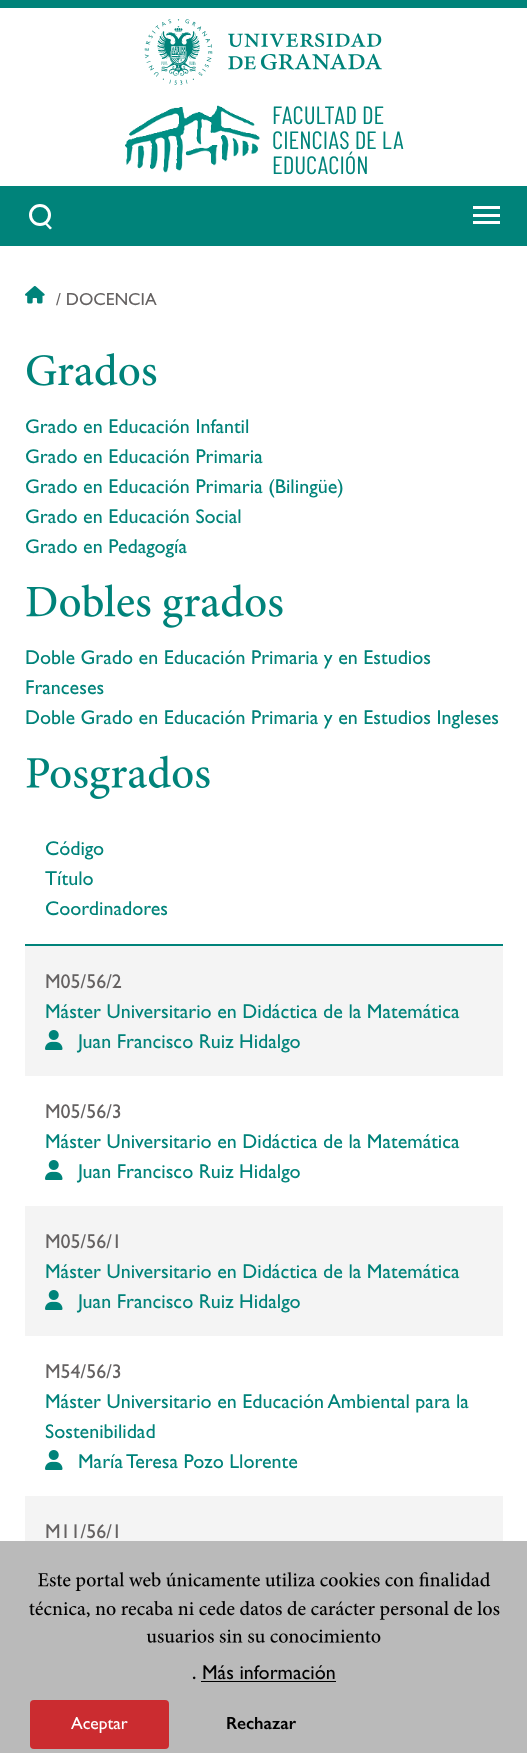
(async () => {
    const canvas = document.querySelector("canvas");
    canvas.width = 527;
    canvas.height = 1753;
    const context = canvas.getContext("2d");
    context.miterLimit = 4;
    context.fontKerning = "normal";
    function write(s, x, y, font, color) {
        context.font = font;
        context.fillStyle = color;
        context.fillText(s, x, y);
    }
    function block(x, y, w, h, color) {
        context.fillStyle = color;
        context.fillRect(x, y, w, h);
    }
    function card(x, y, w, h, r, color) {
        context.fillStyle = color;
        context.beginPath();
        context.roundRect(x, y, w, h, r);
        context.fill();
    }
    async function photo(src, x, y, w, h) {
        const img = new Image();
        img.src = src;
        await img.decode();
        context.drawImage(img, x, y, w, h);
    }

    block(0, 0, 527, 1753, "rgb(255, 255, 255)");
    block(0, 0, 527, 8, "rgb(0, 131, 122)");
    block(0, 186, 527, 60, "rgb(0, 131, 122)");
    await photo("media/1.png", 144, 19, 238, 66);
    await photo("media/2.png", 125, 105, 135, 68);
    write("FACULTAD DE", 272, 124, "25px Barlow Condensed", "rgb(0, 131, 122)");
    write("CIENCIAS DE LA", 272, 149, "25px Barlow Condensed", "rgb(0, 131, 122)");
    write("EDUCACIÓN", 272, 174, "25px Barlow Condensed", "rgb(0, 131, 122)");
    context.beginPath();
    context.arc(40, 215, 9.5, 0, Math.PI * 2);
    context.strokeStyle = "rgb(255, 255, 255)";
    context.lineWidth = 3;
    context.stroke();
    context.fillStyle = "rgb(255, 255, 255)";
    context.beginPath();
    context.moveTo(46, 222);
    context.lineTo(52, 228);
    context.lineTo(50, 229.5);
    context.lineTo(44.5, 223.5);
    context.closePath();
    context.fill();
    block(473, 214, 27, 3, "rgb(255, 255, 255)");
    block(473, 206, 27, 3, "rgb(255, 255, 255)");
    block(473, 221, 27, 3, "rgb(255, 255, 255)");
    await photo("media/3.png", 25, 286, 20, 18);
    write("/ DOCENCIA", 56, 305, "17.5px Gill Sans", "rgb(101, 98, 98)");
    await photo("media/4.png", 27, 353, 130, 33);
    write("Grado en Educación Infantil", 25, 433, "20px Gill Sans", "rgb(0, 131, 122)");
    write("Grado en Educación Primaria", 25, 463, "20px Gill Sans", "rgb(0, 131, 122)");
    write("Grado en Educación Primaria (Bilingüe)", 25, 493, "20px Gill Sans", "rgb(0, 131, 122)");
    write("Grado en Educación Social", 25, 523, "20px Gill Sans", "rgb(0, 131, 122)");
    write("Grado en Pedagogía", 25, 553, "20px Gill Sans", "rgb(0, 131, 122)");
    await photo("media/5.png", 26, 584, 257, 44);
    write("Doble Grado en Educación Primaria y en Estudios", 25, 664, "20px Gill Sans", "rgb(0, 131, 122)");
    write("Franceses", 25, 694, "20px Gill Sans", "rgb(0, 131, 122)");
    write("Doble Grado en Educación Primaria y en Estudios Ingleses", 25, 724, "20px Gill Sans", "rgb(0, 131, 122)");
    await photo("media/6.png", 26, 755, 184, 44);
    block(25, 944, 478, 2, "rgb(0, 131, 122)");
    write("Código", 45, 855, "20px Gill Sans", "rgb(0, 131, 122)");
    write("Título", 45, 885, "20px Gill Sans", "rgb(0, 131, 122)");
    write("Coordinadores", 45, 915, "20px Gill Sans", "rgb(0, 131, 122)");
    block(25, 946, 478, 130, "rgb(244, 244, 244)");
    write("M05/56/2", 45, 988, "20px Gill Sans", "rgb(101, 98, 98)");
    write("Máster Universitario en Didáctica de la Matemática", 45, 1018, "20px Gill Sans", "rgb(0, 131, 122)");
    await photo("media/7.png", 45, 1030, 18, 20);
    write("Juan Francisco Ruiz Hidalgo", 78, 1048, "20px Gill Sans", "rgb(0, 131, 122)");
    write("M05/56/3", 45, 1118, "20px Gill Sans", "rgb(101, 98, 98)");
    write("Máster Universitario en Didáctica de la Matemática", 45, 1148, "20px Gill Sans", "rgb(0, 131, 122)");
    await photo("media/8.png", 45, 1160, 18, 20);
    write("Juan Francisco Ruiz Hidalgo", 78, 1178, "20px Gill Sans", "rgb(0, 131, 122)");
    block(25, 1206, 478, 130, "rgb(244, 244, 244)");
    write("M05/56/1", 45, 1248, "20px Gill Sans", "rgb(101, 98, 98)");
    write("Máster Universitario en Didáctica de la Matemática", 45, 1278, "20px Gill Sans", "rgb(0, 131, 122)");
    await photo("media/7.png", 45, 1290, 18, 20);
    write("Juan Francisco Ruiz Hidalgo", 78, 1308, "20px Gill Sans", "rgb(0, 131, 122)");
    write("M54/56/3", 45, 1378, "20px Gill Sans", "rgb(101, 98, 98)");
    write("Máster Universitario en Educación Ambiental para la", 45, 1408, "20px Gill Sans", "rgb(0, 131, 122)");
    write("Sostenibilidad", 45, 1438, "20px Gill Sans", "rgb(0, 131, 122)");
    await photo("media/8.png", 45, 1450, 18, 20);
    write("María Teresa Pozo Llorente", 78, 1468, "20px Gill Sans", "rgb(0, 131, 122)");
    block(25, 1496, 478, 45, "rgb(244, 244, 244)");
    write("M11/56/1", 45, 1538, "20px Gill Sans", "rgb(101, 98, 98)");
    block(0, 1541, 527, 212, "rgb(186, 186, 186)");
    await photo("media/9.png", 38, 1572, 453, 19);
    await photo("media/10.png", 29, 1600, 471, 20);
    await photo("media/11.png", 146, 1629, 235, 14);
    write(".", 192, 1679, "600 17.5px Gill Sans", "rgb(0, 0, 0)");
    write("Más información", 202, 1679, "20px Gill Sans", "rgb(0, 0, 0)");
    block(201, 1681, 135, 1, "rgb(0, 0, 0)");
    card(30, 1700, 139, 49, 4, "rgb(203, 44, 48)");
    write("Aceptar", 71, 1729, "17.5px Gill Sans", "rgb(255, 255, 255)");
    write("Rechazar", 226, 1729, "600 17.5px Gill Sans", "rgb(0, 0, 0)");
})();
